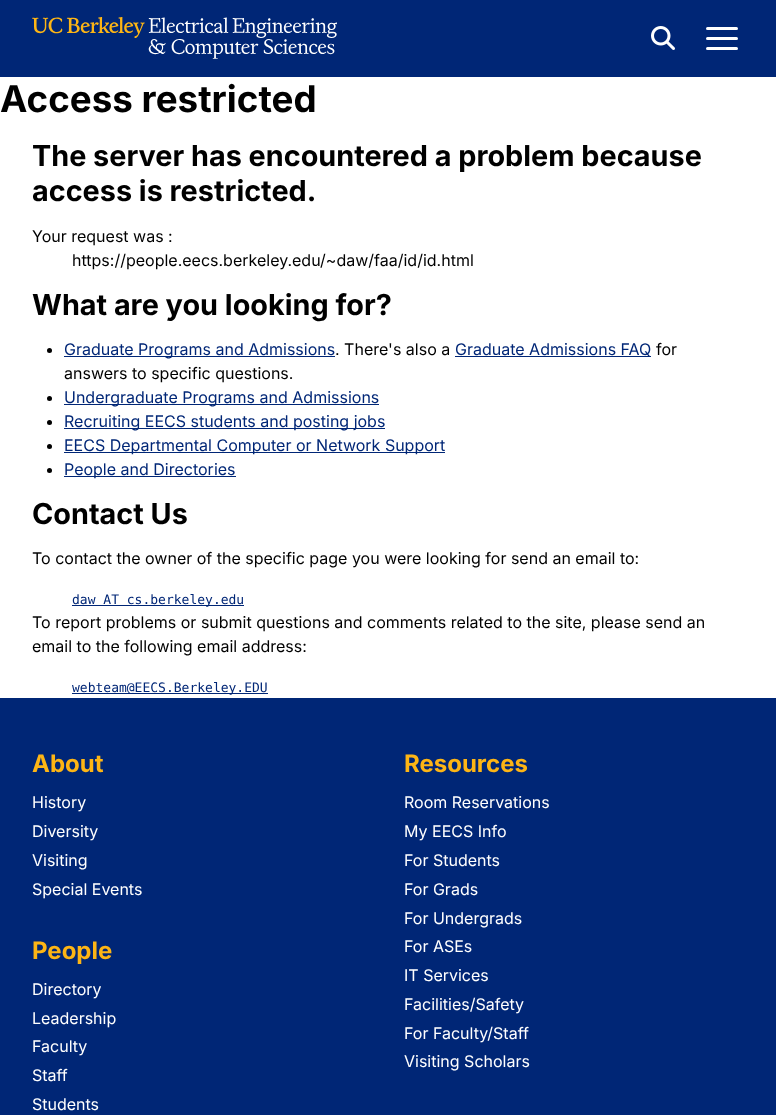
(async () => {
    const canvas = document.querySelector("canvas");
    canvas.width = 776;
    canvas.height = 1115;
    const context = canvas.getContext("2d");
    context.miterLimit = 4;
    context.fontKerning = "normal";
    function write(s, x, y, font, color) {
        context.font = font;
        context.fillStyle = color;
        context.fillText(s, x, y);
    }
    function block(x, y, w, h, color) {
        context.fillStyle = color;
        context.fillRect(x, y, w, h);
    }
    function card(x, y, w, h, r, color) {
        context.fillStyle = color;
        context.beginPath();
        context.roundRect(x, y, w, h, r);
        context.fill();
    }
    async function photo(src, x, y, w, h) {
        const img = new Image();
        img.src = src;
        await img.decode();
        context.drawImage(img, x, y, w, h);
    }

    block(0, 0, 776, 1115, "rgb(255, 255, 255)");
    block(0, 0, 776, 77, "rgb(0, 38, 118)");
    await photo("media/1.png", 32, 17, 305, 42);
    await photo("media/2.png", 651, 26, 24, 24);
    card(706, 27, 32, 3, 1.5, "rgb(255, 255, 255)");
    card(706, 37, 32, 3, 1.5, "rgb(255, 255, 255)");
    card(706, 47, 32, 3, 1.5, "rgb(255, 255, 255)");
    write("Access restricted", 0, 112, "bold 36.75px Inter", "rgb(0, 0, 0)");
    write("The server has encountered a problem because", 32, 166, "bold 28.8px Inter", "rgb(0, 0, 0)");
    write("access is restricted.", 32, 201, "bold 28.8px Inter", "rgb(0, 0, 0)");
    write("Your request was :", 32, 242, "16px Inter", "rgb(0, 0, 0)");
    write("https://people.eecs.berkeley.edu/~daw/faa/id/id.html", 72, 266, "16px Inter", "rgb(0, 0, 0)");
    write("What are you looking for?", 32, 315, "bold 28.8px Inter", "rgb(0, 0, 0)");
    context.beginPath();
    context.arc(49.5, 350.5, 2.5, 0, Math.PI * 2);
    context.fill();
    block(64, 356, 271, 1, "rgb(0, 38, 118)");
    write("Graduate Programs and Admissions", 64, 355, "16px Inter", "rgb(0, 38, 118)");
    write(". There's also a", 335, 355, "16px Inter", "rgb(0, 0, 0)");
    block(455, 356, 196, 1, "rgb(0, 38, 118)");
    write("Graduate Admissions FAQ", 455, 355, "16px Inter", "rgb(0, 38, 118)");
    write("for", 656, 355, "16px Inter", "rgb(0, 0, 0)");
    write("answers to specific questions.", 64, 379, "16px Inter", "rgb(0, 0, 0)");
    context.beginPath();
    context.arc(49.5, 398.5, 2.5, 0, Math.PI * 2);
    context.fill();
    block(64, 404, 315, 1, "rgb(0, 38, 118)");
    write("Undergraduate Programs and Admissions", 64, 403, "16px Inter", "rgb(0, 38, 118)");
    context.fillStyle = "rgb(0, 0, 0)";
    context.beginPath();
    context.arc(49.5, 422.5, 2.5, 0, Math.PI * 2);
    context.fill();
    block(64, 428, 321, 1, "rgb(0, 38, 118)");
    write("Recruiting EECS students and posting jobs", 64, 427, "16px Inter", "rgb(0, 38, 118)");
    context.fillStyle = "rgb(0, 0, 0)";
    context.beginPath();
    context.arc(49.5, 446.5, 2.5, 0, Math.PI * 2);
    context.fill();
    block(64, 452, 381, 1, "rgb(0, 38, 118)");
    write("EECS Departmental Computer or Network Support", 64, 451, "16px Inter", "rgb(0, 38, 118)");
    context.fillStyle = "rgb(0, 0, 0)";
    context.beginPath();
    context.arc(49.5, 470.5, 2.5, 0, Math.PI * 2);
    context.fill();
    block(64, 476, 172, 1, "rgb(0, 38, 118)");
    write("People and Directories", 64, 475, "16px Inter", "rgb(0, 38, 118)");
    write("Contact Us", 32, 524, "bold 28.8px Inter", "rgb(0, 0, 0)");
    write("To contact the owner of the specific page you were looking for send an email to:", 32, 564, "16px Inter", "rgb(0, 0, 0)");
    block(72, 605, 172, 1, "rgb(0, 38, 118)");
    write("daw AT cs.berkeley.edu", 72, 604, "13px DejaVu Sans Mono", "rgb(0, 38, 118)");
    write("To report problems or submit questions and comments related to the site, please send an", 32, 628, "16px Inter", "rgb(0, 0, 0)");
    write("email to the following email address:", 32, 652, "16px Inter", "rgb(0, 0, 0)");
    block(72, 693, 196, 1, "rgb(0, 38, 118)");
    write("webteam@EECS.Berkeley.EDU", 72, 692, "13px DejaVu Sans Mono", "rgb(0, 38, 118)");
    block(0, 698, 776, 417, "rgb(0, 38, 118)");
    write("About", 32, 772, "bold 24px Inter", "rgb(253, 181, 21)");
    write("History", 32, 808, "16px Inter", "rgb(255, 255, 255)");
    write("Diversity", 32, 837, "16px Inter", "rgb(255, 255, 255)");
    write("Visiting", 32, 866, "16px Inter", "rgb(255, 255, 255)");
    write("Special Events", 32, 895, "16px Inter", "rgb(255, 255, 255)");
    write("Resources", 404, 772, "bold 24px Inter", "rgb(253, 181, 21)");
    write("Room Reservations", 404, 808, "16px Inter", "rgb(255, 255, 255)");
    write("My EECS Info", 404, 837, "16px Inter", "rgb(255, 255, 255)");
    write("For Students", 404, 866, "16px Inter", "rgb(255, 255, 255)");
    write("For Grads", 404, 895, "16px Inter", "rgb(255, 255, 255)");
    write("For Undergrads", 404, 924, "16px Inter", "rgb(255, 255, 255)");
    write("For ASEs", 404, 952, "16px Inter", "rgb(255, 255, 255)");
    write("IT Services", 404, 981, "16px Inter", "rgb(255, 255, 255)");
    write("Facilities/Safety", 404, 1010, "16px Inter", "rgb(255, 255, 255)");
    write("For Faculty/Staff", 404, 1039, "16px Inter", "rgb(255, 255, 255)");
    write("Visiting Scholars", 404, 1067, "16px Inter", "rgb(255, 255, 255)");
    write("People", 32, 959, "bold 24px Inter", "rgb(253, 181, 21)");
    write("Directory", 32, 995, "16px Inter", "rgb(255, 255, 255)");
    write("Leadership", 32, 1024, "16px Inter", "rgb(255, 255, 255)");
    write("Faculty", 32, 1052, "16px Inter", "rgb(255, 255, 255)");
    write("Staff", 32, 1081, "16px Inter", "rgb(255, 255, 255)");
    write("Students", 32, 1110, "16px Inter", "rgb(255, 255, 255)");
})();
